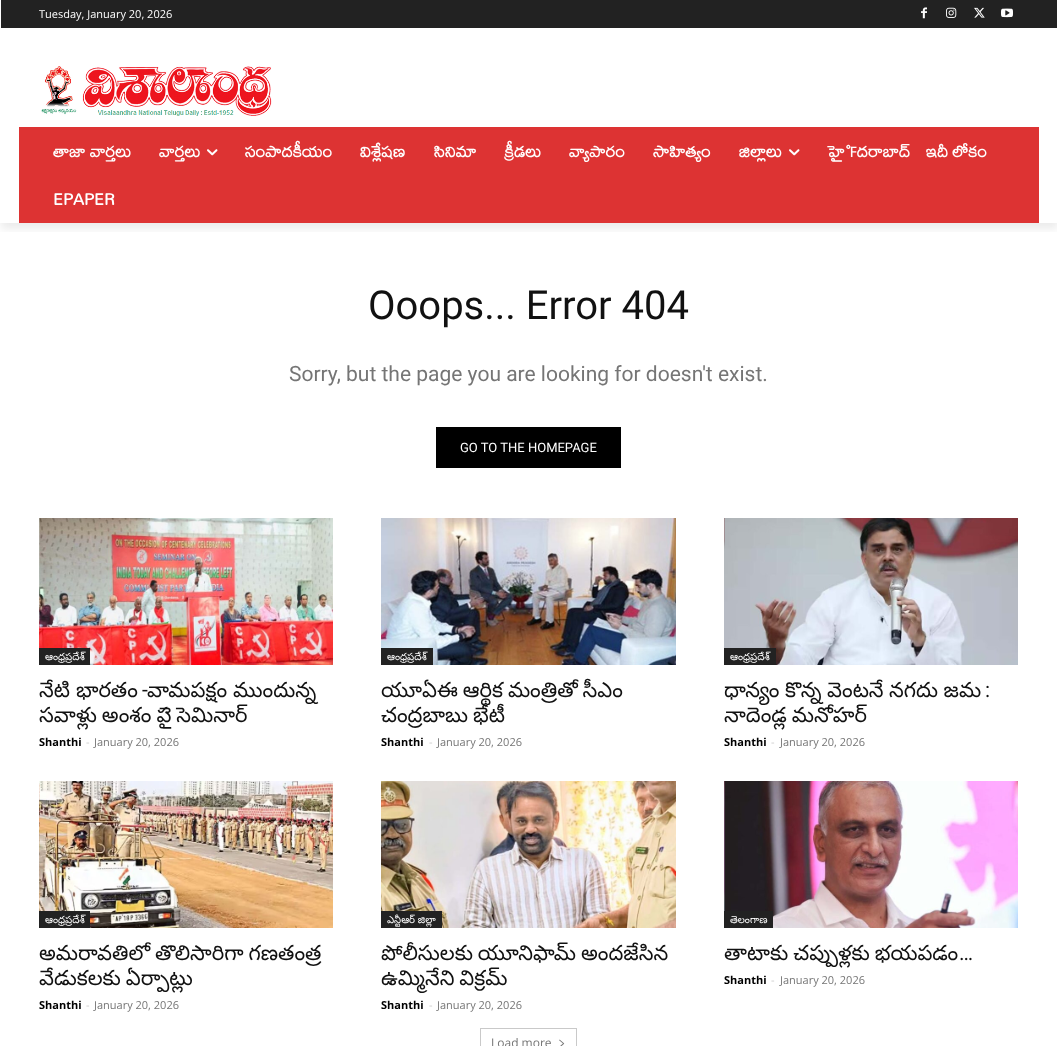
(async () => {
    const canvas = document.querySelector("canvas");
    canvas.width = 1057;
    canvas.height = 1046;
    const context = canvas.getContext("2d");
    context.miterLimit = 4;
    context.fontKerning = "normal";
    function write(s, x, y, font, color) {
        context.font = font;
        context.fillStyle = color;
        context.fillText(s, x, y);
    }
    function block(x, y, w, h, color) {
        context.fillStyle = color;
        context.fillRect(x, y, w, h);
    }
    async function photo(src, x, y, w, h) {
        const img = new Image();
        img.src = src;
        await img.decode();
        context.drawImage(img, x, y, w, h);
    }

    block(0, 0, 1057, 1046, "rgb(255, 255, 255)");
    block(1, 0, 1056, 28, "rgb(34, 34, 34)");
    await photo("media/1.png", 921, 7, 6, 12);
    await photo("media/2.png", 946, 7, 11, 11);
    await photo("media/3.png", 974, 7, 11, 11);
    await photo("media/4.png", 1001, 8, 12, 10);
    await photo("media/5.png", 41, 66, 231, 50);
    block(19, 127, 1020, 96, "rgb(221, 51, 51)");
    context.save();
    context.beginPath();
    context.rect(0, 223, 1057, 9);
    context.clip();
    context.fillStyle = "rgba(0, 0, 0, 0.08)";
    context.filter = "blur(4px)";
    context.beginPath();
    context.rect(1, 6, 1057, 223);
    context.fill();
    context.filter = "none";
    context.restore();
    write("Tuesday, January 20, 2026", 39, 18, "11px Open Sans", "rgb(255, 255, 255)");
    write("తాజా వార్తలు", 53, 157, "bold 18px Mallanna", "rgb(255, 255, 255)");
    write("వార్తలు", 159, 157, "bold 18px Mallanna", "rgb(255, 255, 255)");
    await photo("media/6.png", 207, 149, 11, 7);
    write("సంపాదకీయం", 245, 157, "bold 18px Mallanna", "rgb(255, 255, 255)");
    write("విశ్లేషణ", 360, 157, "bold 18px Mallanna", "rgb(255, 255, 255)");
    write("సినిమా", 434, 157, "bold 18px Mallanna", "rgb(255, 255, 255)");
    write("క్రీడలు", 504, 157, "bold 18px Mallanna", "rgb(255, 255, 255)");
    write("వ్యాపారం", 569, 157, "bold 18px Mallanna", "rgb(255, 255, 255)");
    write("సాహిత్యం", 653, 157, "bold 18px Mallanna", "rgb(255, 255, 255)");
    write("జిల్లాలు", 739, 157, "bold 18px Mallanna", "rgb(255, 255, 255)");
    await photo("media/6.png", 789, 149, 11, 7);
    write("హైదరాబాద్", 827, 157, "bold 18px Mallanna", "rgb(255, 255, 255)");
    write("ఇదీ లోకం", 926, 157, "bold 18px Mallanna", "rgb(255, 255, 255)");
    write("EPAPER", 53, 205, "bold 18px Mallanna", "rgb(255, 255, 255)");
    write("Ooops... Error 404", 368, 319, "40px Roboto", "rgb(17, 17, 17)");
    write("Sorry, but the page you are looking for doesn't exist.", 289, 381, "21px Roboto", "rgb(117, 117, 117)");
    block(436, 427, 185, 41, "rgb(0, 0, 0)");
    write("GO TO THE HOMEPAGE", 460, 452, "13px Roboto", "rgb(255, 255, 255)");
    await photo("media/7.png", 39, 518, 294, 147);
    block(39, 648, 51, 17, "rgb(34, 34, 34)");
    write("ఆంధ్రప్రదేశ్", 45, 660, "10px Noto Sans Telugu", "rgb(255, 255, 255)");
    write("నేటి భారతం", 39, 697, "21px Noto Sans Telugu", "rgb(17, 17, 17)");
    write("-", 142, 697, "21px Roboto", "rgb(17, 17, 17)");
    write("వామపక్షం ముందున్న", 147, 697, "21px Noto Sans Telugu", "rgb(17, 17, 17)");
    context.wordSpacing = "-1px";
    write("సవాళ్లు అంశం పై సెమినార్", 39, 722, "21px Noto Sans Telugu", "rgb(17, 17, 17)");
    context.wordSpacing = "0px";
    write("Shanthi", 39, 746, "bold 11px Open Sans", "rgb(0, 0, 0)");
    write("-", 86, 746, "11px Open Sans", "rgb(204, 204, 204)");
    write("January 20, 2026", 94, 746, "11px Open Sans", "rgb(117, 117, 117)");
    await photo("media/8.png", 381, 518, 295, 147);
    block(381, 648, 52, 17, "rgb(34, 34, 34)");
    write("ఆంధ్రప్రదేశ్", 387, 660, "10px Noto Sans Telugu", "rgb(255, 255, 255)");
    context.wordSpacing = "-1px";
    write("యూఏఈ ఆర్థిక మంత్రితో సీఎం", 381, 697, "21px Noto Sans Telugu", "rgb(17, 17, 17)");
    write("చంద్రబాబు భేటీ", 381, 722, "21px Noto Sans Telugu", "rgb(17, 17, 17)");
    context.wordSpacing = "0px";
    write("Shanthi", 381, 746, "bold 11px Open Sans", "rgb(0, 0, 0)");
    write("-", 429, 746, "11px Open Sans", "rgb(204, 204, 204)");
    write("January 20, 2026", 437, 746, "11px Open Sans", "rgb(117, 117, 117)");
    await photo("media/9.png", 724, 518, 294, 147);
    block(724, 648, 52, 17, "rgb(34, 34, 34)");
    write("ఆంధ్రప్రదేశ్", 730, 660, "10px Noto Sans Telugu", "rgb(255, 255, 255)");
    context.wordSpacing = "-0.5px";
    write("ధాన్యం కొన్న వెంటనే నగదు జమ", 724, 697, "21px Noto Sans Telugu", "rgb(17, 17, 17)");
    context.wordSpacing = "0px";
    write(":", 985, 697, "21px Roboto", "rgb(17, 17, 17)");
    context.wordSpacing = "-1px";
    write("నాదెండ్ల మనోహర్", 724, 722, "21px Noto Sans Telugu", "rgb(17, 17, 17)");
    context.wordSpacing = "0px";
    write("Shanthi", 724, 746, "bold 11px Open Sans", "rgb(0, 0, 0)");
    write("-", 771, 746, "11px Open Sans", "rgb(204, 204, 204)");
    write("January 20, 2026", 780, 746, "11px Open Sans", "rgb(117, 117, 117)");
    await photo("media/10.png", 39, 781, 294, 147);
    block(39, 911, 51, 17, "rgb(34, 34, 34)");
    write("ఆంధ్రప్రదేశ్", 45, 923, "10px Noto Sans Telugu", "rgb(255, 255, 255)");
    context.wordSpacing = "-1px";
    write("అమరావతిలో తొలిసారిగా గణతంత్ర", 39, 960, "21px Noto Sans Telugu", "rgb(17, 17, 17)");
    write("వేడుకలకు ఏర్పాట్లు", 39, 985, "21px Noto Sans Telugu", "rgb(17, 17, 17)");
    context.wordSpacing = "0px";
    write("Shanthi", 39, 1009, "bold 11px Open Sans", "rgb(0, 0, 0)");
    write("-", 86, 1009, "11px Open Sans", "rgb(204, 204, 204)");
    write("January 20, 2026", 94, 1009, "11px Open Sans", "rgb(117, 117, 117)");
    await photo("media/11.png", 381, 781, 295, 147);
    block(381, 911, 61, 17, "rgb(34, 34, 34)");
    write("ఎన్టీఆర్ జిల్లా", 387, 923, "10px Noto Sans Telugu", "rgb(255, 255, 255)");
    context.wordSpacing = "-1px";
    write("పోలీసులకు యూనిఫామ్ అందజేసిన", 381, 960, "21px Noto Sans Telugu", "rgb(17, 17, 17)");
    write("ఉమ్మినేని విక్రమ్", 381, 985, "21px Noto Sans Telugu", "rgb(17, 17, 17)");
    context.wordSpacing = "0px";
    write("Shanthi", 381, 1009, "bold 11px Open Sans", "rgb(0, 0, 0)");
    write("-", 429, 1009, "11px Open Sans", "rgb(204, 204, 204)");
    write("January 20, 2026", 437, 1009, "11px Open Sans", "rgb(117, 117, 117)");
    await photo("media/12.png", 724, 781, 294, 147);
    block(724, 911, 49, 17, "rgb(34, 34, 34)");
    write("తెలంగాణ", 730, 923, "10px Noto Sans Telugu", "rgb(255, 255, 255)");
    context.wordSpacing = "-1px";
    write("తాటాకు చప్పుళ్లకు భయపడం", 724, 960, "21px Noto Sans Telugu", "rgb(17, 17, 17)");
    context.wordSpacing = "0px";
    write("…", 959, 960, "21px Roboto", "rgb(17, 17, 17)");
    write("Shanthi", 724, 984, "bold 11px Open Sans", "rgb(0, 0, 0)");
    write("-", 771, 984, "11px Open Sans", "rgb(204, 204, 204)");
    write("January 20, 2026", 780, 984, "11px Open Sans", "rgb(117, 117, 117)");
    context.strokeStyle = "rgb(201, 201, 201)";
    context.strokeRect(480.5, 1028.5, 96, 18);
    write("Load more", 491, 1047, "12px Open Sans", "rgb(117, 117, 117)");
    await photo("media/13.png", 559, 1039, 6, 7);
})();
